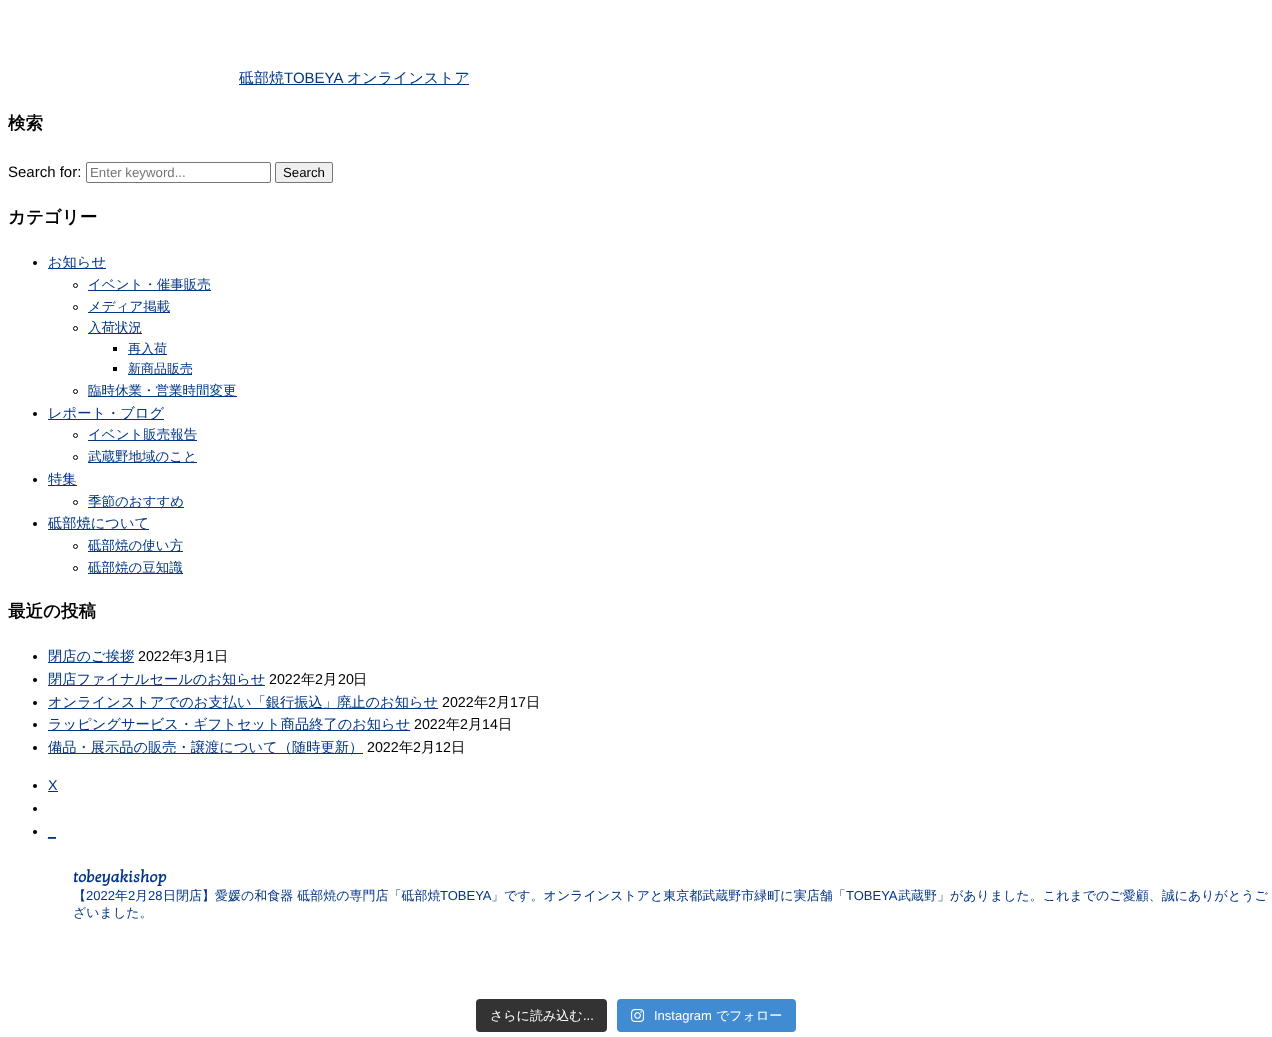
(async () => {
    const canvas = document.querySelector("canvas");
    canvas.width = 1272;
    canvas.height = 1037;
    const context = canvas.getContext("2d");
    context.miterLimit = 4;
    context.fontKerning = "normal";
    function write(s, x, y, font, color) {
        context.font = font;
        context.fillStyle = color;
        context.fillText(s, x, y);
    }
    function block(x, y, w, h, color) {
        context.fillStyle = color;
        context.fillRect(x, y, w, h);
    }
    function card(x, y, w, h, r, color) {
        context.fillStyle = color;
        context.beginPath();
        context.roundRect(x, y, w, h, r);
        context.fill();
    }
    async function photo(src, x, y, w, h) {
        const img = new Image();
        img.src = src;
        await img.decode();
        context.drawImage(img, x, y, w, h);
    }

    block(0, 0, 1272, 1037, "rgb(255, 255, 255)");
    block(239, 84, 230, 1, "rgb(0, 53, 134)");
    write("砥部焼", 239, 83, "500 15px WenQuanYi Zen Hei", "rgb(0, 53, 134)");
    write("TOBEYA", 284, 83, "15px Liberation Sans", "rgb(0, 53, 134)");
    write("オンラインストア", 347, 83, "500 15px WenQuanYi Zen Hei", "rgb(0, 53, 134)");
    write("検索", 8, 129, "bold 17.5px WenQuanYi Zen Hei", "rgb(0, 0, 0)");
    write("Search for:", 8, 177, "15px Liberation Sans", "rgb(0, 0, 0)");
    context.beginPath();
    context.roundRect(86.5, 162.5, 184, 20, 1.5);
    context.strokeStyle = "rgb(118, 118, 118)";
    context.stroke();
    write("Enter keyword...", 90, 177, "13.25px Liberation Sans", "rgb(117, 117, 117)");
    context.fillStyle = "rgb(239, 239, 239)";
    context.beginPath();
    context.roundRect(275.5, 162.5, 57, 20, 1.5);
    context.fill();
    context.stroke();
    write("Search", 283, 177, "13.25px Liberation Sans", "rgb(0, 0, 0)");
    write("カテゴリー", 8, 223, "bold 17.5px WenQuanYi Zen Hei", "rgb(0, 0, 0)");
    context.beginPath();
    context.arc(35, 263, 2, 0, Math.PI * 2);
    context.fill();
    block(48, 268, 58, 1, "rgb(0, 53, 134)");
    write("お知らせ", 48, 267, "500 14.25px WenQuanYi Zen Hei", "rgb(0, 53, 134)");
    context.beginPath();
    context.arc(75.5, 285.5, 2, 0, Math.PI * 2);
    context.strokeStyle = "rgb(0, 0, 0)";
    context.stroke();
    block(88, 290, 123, 1, "rgb(0, 53, 134)");
    write("イベント・催事販売", 88, 289, "500 13.5px WenQuanYi Zen Hei", "rgb(0, 53, 134)");
    context.beginPath();
    context.arc(75.5, 307.5, 2, 0, Math.PI * 2);
    context.stroke();
    block(88, 312, 82, 1, "rgb(0, 53, 134)");
    write("メディア掲載", 88, 311, "500 13.5px WenQuanYi Zen Hei", "rgb(0, 53, 134)");
    context.beginPath();
    context.arc(75.5, 328.5, 2, 0, Math.PI * 2);
    context.stroke();
    block(88, 333, 54, 1, "rgb(0, 53, 134)");
    write("入荷状況", 88, 332, "500 13.5px WenQuanYi Zen Hei", "rgb(0, 53, 134)");
    block(113, 347, 4, 4, "rgb(0, 0, 0)");
    block(128, 354, 39, 1, "rgb(0, 53, 134)");
    write("再入荷", 128, 353, "500 13px WenQuanYi Zen Hei", "rgb(0, 53, 134)");
    block(113, 367, 4, 4, "rgb(0, 0, 0)");
    block(128, 374, 64, 1, "rgb(0, 53, 134)");
    write("新商品販売", 128, 373, "500 13px WenQuanYi Zen Hei", "rgb(0, 53, 134)");
    context.beginPath();
    context.arc(75.5, 391.5, 2, 0, Math.PI * 2);
    context.stroke();
    block(88, 396, 149, 1, "rgb(0, 53, 134)");
    write("臨時休業・営業時間変更", 88, 395, "500 13.5px WenQuanYi Zen Hei", "rgb(0, 53, 134)");
    context.fillStyle = "rgb(0, 0, 0)";
    context.beginPath();
    context.arc(35, 414, 2, 0, Math.PI * 2);
    context.fill();
    block(48, 419, 116, 1, "rgb(0, 53, 134)");
    write("レポート・ブログ", 48, 418, "500 14.25px WenQuanYi Zen Hei", "rgb(0, 53, 134)");
    context.beginPath();
    context.arc(75.5, 435.5, 2, 0, Math.PI * 2);
    context.stroke();
    block(88, 440, 109, 1, "rgb(0, 53, 134)");
    write("イベント販売報告", 88, 439, "500 13.5px WenQuanYi Zen Hei", "rgb(0, 53, 134)");
    context.beginPath();
    context.arc(75.5, 457.5, 2, 0, Math.PI * 2);
    context.stroke();
    block(88, 462, 109, 1, "rgb(0, 53, 134)");
    write("武蔵野地域のこと", 88, 461, "500 13.5px WenQuanYi Zen Hei", "rgb(0, 53, 134)");
    context.fillStyle = "rgb(0, 0, 0)";
    context.beginPath();
    context.arc(35, 480, 2, 0, Math.PI * 2);
    context.fill();
    block(48, 485, 29, 1, "rgb(0, 53, 134)");
    write("特集", 48, 484, "500 14.25px WenQuanYi Zen Hei", "rgb(0, 53, 134)");
    context.beginPath();
    context.arc(75.5, 502.5, 2, 0, Math.PI * 2);
    context.stroke();
    block(88, 507, 96, 1, "rgb(0, 53, 134)");
    write("季節のおすすめ", 88, 506, "500 13.5px WenQuanYi Zen Hei", "rgb(0, 53, 134)");
    context.fillStyle = "rgb(0, 0, 0)";
    context.beginPath();
    context.arc(35, 524, 2, 0, Math.PI * 2);
    context.fill();
    block(48, 529, 101, 1, "rgb(0, 53, 134)");
    write("砥部焼について", 48, 528, "500 14.25px WenQuanYi Zen Hei", "rgb(0, 53, 134)");
    context.beginPath();
    context.arc(75.5, 546.5, 2, 0, Math.PI * 2);
    context.stroke();
    block(88, 551, 95, 1, "rgb(0, 53, 134)");
    write("砥部焼の使い方", 88, 550, "500 13.5px WenQuanYi Zen Hei", "rgb(0, 53, 134)");
    context.beginPath();
    context.arc(75.5, 568.5, 2, 0, Math.PI * 2);
    context.stroke();
    block(88, 573, 95, 1, "rgb(0, 53, 134)");
    write("砥部焼の豆知識", 88, 572, "500 13.5px WenQuanYi Zen Hei", "rgb(0, 53, 134)");
    write("最近の投稿", 8, 617, "bold 17.5px WenQuanYi Zen Hei", "rgb(0, 0, 0)");
    context.beginPath();
    context.arc(35, 657, 2, 0, Math.PI * 2);
    context.fill();
    block(48, 662, 86, 1, "rgb(0, 53, 134)");
    write("閉店のご挨拶", 48, 661, "500 14.25px WenQuanYi Zen Hei", "rgb(0, 53, 134)");
    write("2022", 138, 661, "14.25px Liberation Sans", "rgb(0, 0, 0)");
    write("年", 170, 661, "500 14.25px WenQuanYi Zen Hei", "rgb(0, 0, 0)");
    write("3", 184, 661, "14.25px Liberation Sans", "rgb(0, 0, 0)");
    write("月", 192, 661, "500 14.25px WenQuanYi Zen Hei", "rgb(0, 0, 0)");
    write("1", 206, 661, "14.25px Liberation Sans", "rgb(0, 0, 0)");
    write("日", 214, 661, "500 14.25px WenQuanYi Zen Hei", "rgb(0, 0, 0)");
    context.beginPath();
    context.arc(35, 680, 2, 0, Math.PI * 2);
    context.fill();
    block(48, 685, 217, 1, "rgb(0, 53, 134)");
    write("閉店ファイナルセールのお知らせ", 48, 684, "500 14.25px WenQuanYi Zen Hei", "rgb(0, 53, 134)");
    write("2022", 269, 684, "14.25px Liberation Sans", "rgb(0, 0, 0)");
    write("年", 301, 684, "500 14.25px WenQuanYi Zen Hei", "rgb(0, 0, 0)");
    write("2", 315, 684, "14.25px Liberation Sans", "rgb(0, 0, 0)");
    write("月", 323, 684, "500 14.25px WenQuanYi Zen Hei", "rgb(0, 0, 0)");
    write("20", 338, 684, "14.25px Liberation Sans", "rgb(0, 0, 0)");
    write("日", 353, 684, "500 14.25px WenQuanYi Zen Hei", "rgb(0, 0, 0)");
    context.beginPath();
    context.arc(35, 703, 2, 0, Math.PI * 2);
    context.fill();
    block(48, 708, 390, 1, "rgb(0, 53, 134)");
    write("オンラインストアでのお支払い「銀行振込」廃止のお知らせ", 48, 707, "500 14.25px WenQuanYi Zen Hei", "rgb(0, 53, 134)");
    write("2022", 442, 707, "14.25px Liberation Sans", "rgb(0, 0, 0)");
    write("年", 474, 707, "500 14.25px WenQuanYi Zen Hei", "rgb(0, 0, 0)");
    write("2", 488, 707, "14.25px Liberation Sans", "rgb(0, 0, 0)");
    write("月", 496, 707, "500 14.25px WenQuanYi Zen Hei", "rgb(0, 0, 0)");
    write("17", 510, 707, "14.25px Liberation Sans", "rgb(0, 0, 0)");
    write("日", 526, 707, "500 14.25px WenQuanYi Zen Hei", "rgb(0, 0, 0)");
    context.beginPath();
    context.arc(35, 725, 2, 0, Math.PI * 2);
    context.fill();
    block(48, 730, 362, 1, "rgb(0, 53, 134)");
    write("ラッピングサービス・ギフトセット商品終了のお知らせ", 48, 729, "500 14.25px WenQuanYi Zen Hei", "rgb(0, 53, 134)");
    write("2022", 414, 729, "14.25px Liberation Sans", "rgb(0, 0, 0)");
    write("年", 446, 729, "500 14.25px WenQuanYi Zen Hei", "rgb(0, 0, 0)");
    write("2", 460, 729, "14.25px Liberation Sans", "rgb(0, 0, 0)");
    write("月", 468, 729, "500 14.25px WenQuanYi Zen Hei", "rgb(0, 0, 0)");
    write("14", 482, 729, "14.25px Liberation Sans", "rgb(0, 0, 0)");
    write("日", 498, 729, "500 14.25px WenQuanYi Zen Hei", "rgb(0, 0, 0)");
    context.beginPath();
    context.arc(35, 748, 2, 0, Math.PI * 2);
    context.fill();
    block(48, 753, 315, 1, "rgb(0, 53, 134)");
    write("備品・展示品の販売・譲渡について（随時更新）", 48, 752, "500 14.25px WenQuanYi Zen Hei", "rgb(0, 53, 134)");
    write("2022", 367, 752, "14.25px Liberation Sans", "rgb(0, 0, 0)");
    write("年", 399, 752, "500 14.25px WenQuanYi Zen Hei", "rgb(0, 0, 0)");
    write("2", 413, 752, "14.25px Liberation Sans", "rgb(0, 0, 0)");
    write("月", 421, 752, "500 14.25px WenQuanYi Zen Hei", "rgb(0, 0, 0)");
    write("12", 435, 752, "14.25px Liberation Sans", "rgb(0, 0, 0)");
    write("日", 451, 752, "500 14.25px WenQuanYi Zen Hei", "rgb(0, 0, 0)");
    context.beginPath();
    context.arc(35, 786, 2, 0, Math.PI * 2);
    context.fill();
    write("X", 48, 790, "14.25px Liberation Sans", "rgb(0, 53, 134)");
    block(48, 791, 10, 1, "rgb(0, 53, 134)");
    context.fillStyle = "rgb(0, 0, 0)";
    context.beginPath();
    context.arc(35, 809, 2, 0, Math.PI * 2);
    context.fill();
    context.beginPath();
    context.arc(35, 832, 2, 0, Math.PI * 2);
    context.fill();
    block(48, 837, 8, 1, "rgb(0, 53, 134)");
    write("_", 48, 836, "14.25px Liberation Sans", "rgb(0, 53, 134)");
    write("tobeyakishop", 73, 882, "bold 16px Kotta One", "rgb(0, 53, 134)");
    write("【", 73, 900, "500 13px WenQuanYi Zen Hei", "rgb(0, 53, 134)");
    write("2022", 86, 900, "13px Liberation Sans", "rgb(0, 53, 134)");
    write("年", 115, 900, "500 13px WenQuanYi Zen Hei", "rgb(0, 53, 134)");
    write("2", 128, 900, "13px Liberation Sans", "rgb(0, 53, 134)");
    write("月", 135, 900, "500 13px WenQuanYi Zen Hei", "rgb(0, 53, 134)");
    write("28", 148, 900, "13px Liberation Sans", "rgb(0, 53, 134)");
    write("日閉店】愛媛の和食器 砥部焼の専門店「砥部焼", 163, 900, "500 13px WenQuanYi Zen Hei", "rgb(0, 53, 134)");
    write("TOBEYA", 440, 900, "13px Liberation Sans", "rgb(0, 53, 134)");
    write("」です。オンラインストアと東京都武蔵野市緑町に実店舗「", 491, 900, "500 13px WenQuanYi Zen Hei", "rgb(0, 53, 134)");
    write("TOBEYA", 846, 900, "13px Liberation Sans", "rgb(0, 53, 134)");
    write("武蔵野」がありました。これまでのご愛顧、誠にありがとうご", 898, 900, "500 13px WenQuanYi Zen Hei", "rgb(0, 53, 134)");
    write("ざいました。", 73, 917, "500 13px WenQuanYi Zen Hei", "rgb(0, 53, 134)");
    card(476, 999, 131, 33, 4, "rgb(51, 51, 51)");
    write("さらに読み込む", 490, 1020, "500 13px WenQuanYi Zen Hei", "rgb(255, 255, 255)");
    write("...", 583, 1020, "13px Liberation Sans", "rgb(255, 255, 255)");
    card(617, 999, 179, 33, 4, "rgb(64, 139, 209)");
    await photo("media/1.png", 631, 1009, 13, 13);
    write("Instagram", 654, 1020, "13px Liberation Sans", "rgb(255, 255, 255)");
    write("でフォロー", 716, 1020, "500 13px WenQuanYi Zen Hei", "rgb(255, 255, 255)");
})();
